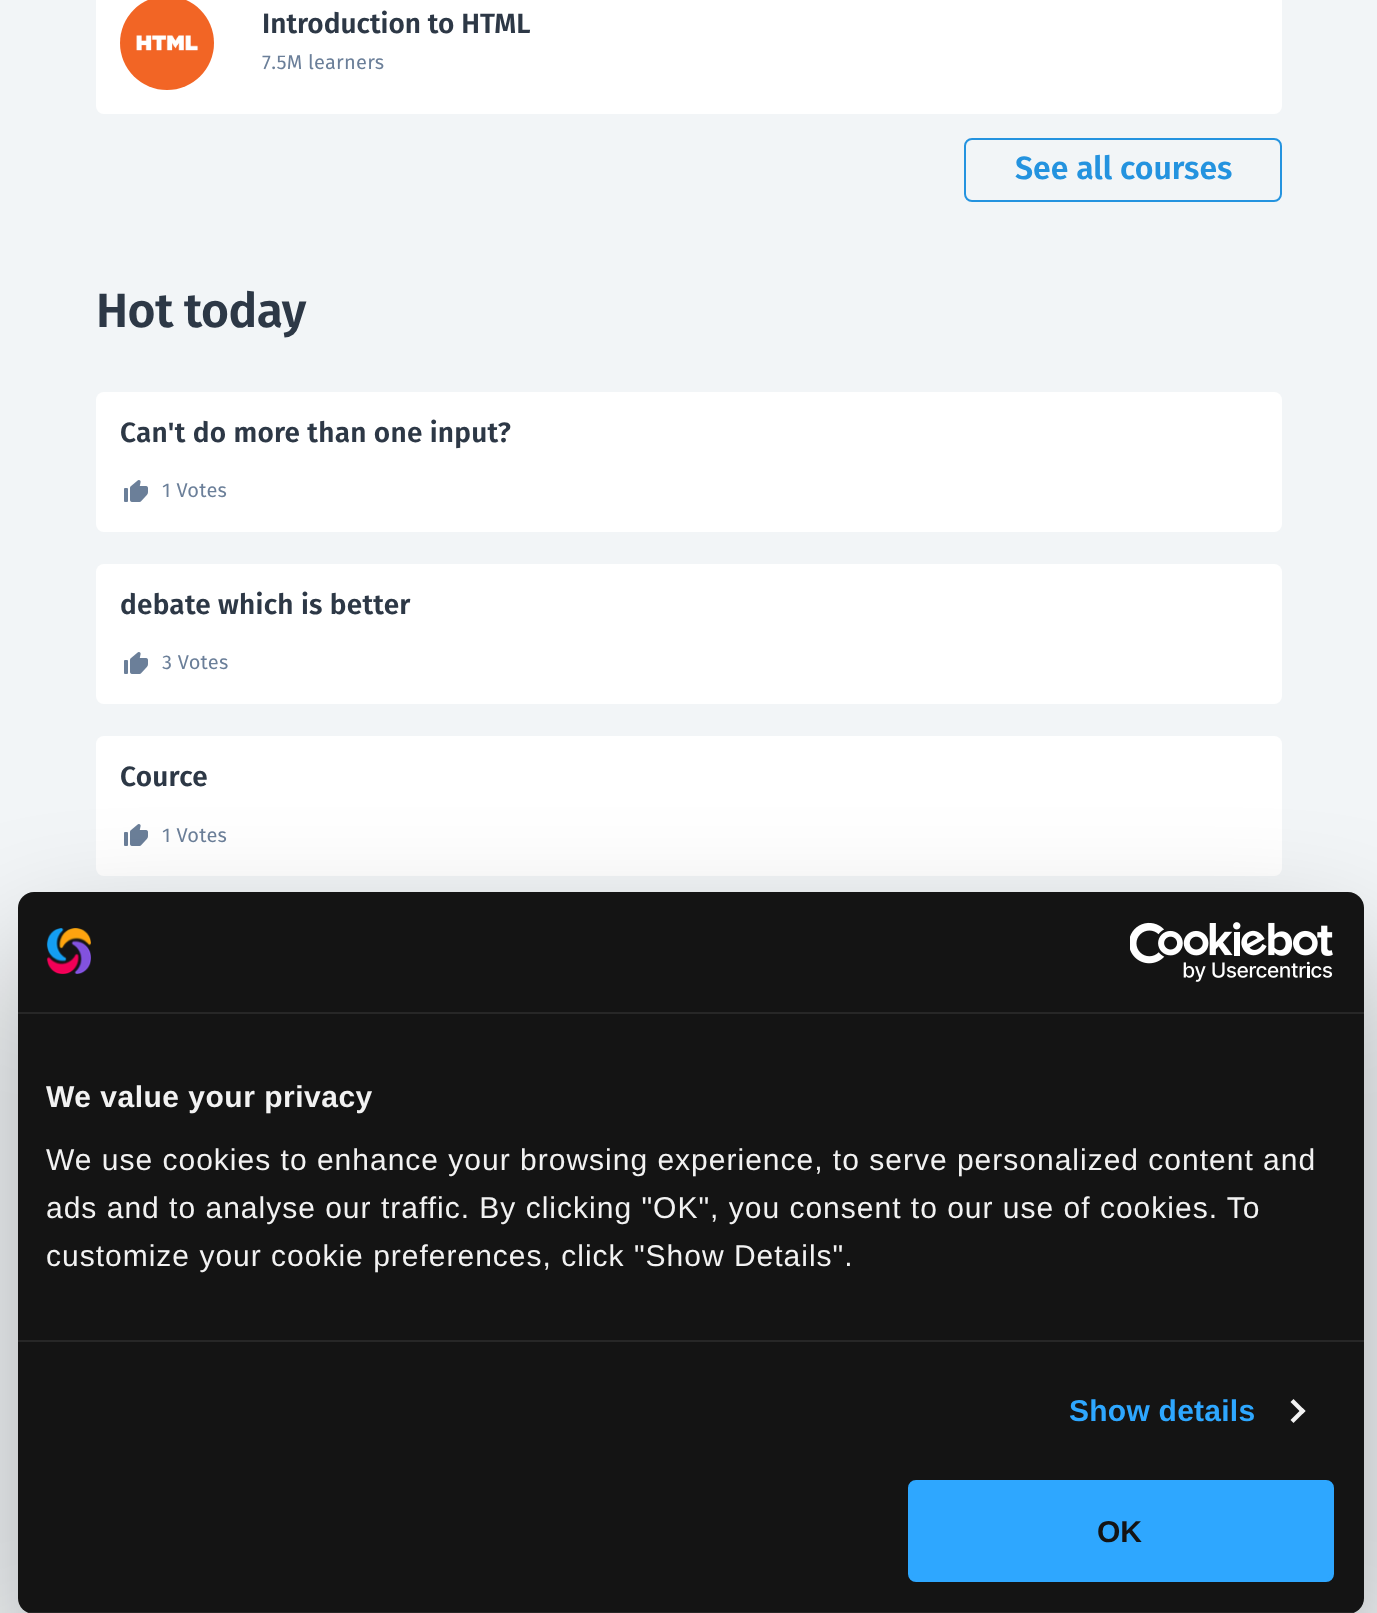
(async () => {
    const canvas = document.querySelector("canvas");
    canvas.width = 1377;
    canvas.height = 1613;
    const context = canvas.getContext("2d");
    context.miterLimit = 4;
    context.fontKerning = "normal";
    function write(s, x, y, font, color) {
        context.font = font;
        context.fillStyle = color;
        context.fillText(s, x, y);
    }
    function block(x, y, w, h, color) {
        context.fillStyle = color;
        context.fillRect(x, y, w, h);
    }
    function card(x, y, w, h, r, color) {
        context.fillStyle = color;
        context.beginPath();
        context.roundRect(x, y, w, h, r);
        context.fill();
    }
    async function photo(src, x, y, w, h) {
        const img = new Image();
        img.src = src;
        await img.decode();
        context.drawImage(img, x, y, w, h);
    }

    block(0, 0, 1377, 1613, "rgb(242, 245, 247)");
    card(96, -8, 1186, 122, 8, "rgb(255, 255, 255)");
    await photo("media/1.png", 120, 0, 94, 90);
    write("Introduction to HTML", 262, 33, "600 28px Fira Sans", "rgb(45, 56, 70)");
    context.letterSpacing = "0.25px";
    write("7.5M learners", 262, 69, "20px Fira Sans", "rgb(107, 127, 153)");
    context.beginPath();
    context.roundRect(965, 139, 316, 62, 7);
    context.strokeStyle = "rgb(36, 147, 223)";
    context.lineWidth = 2;
    context.stroke();
    context.letterSpacing = "0px";
    write("See all courses", 1015, 179, "600 32px Fira Sans", "rgb(36, 147, 223)");
    context.letterSpacing = "-0.5px";
    write("Hot today", 96, 327, "600 48px Fira Sans", "rgb(45, 56, 70)");
    card(96, 392, 1186, 140, 8, "rgb(255, 255, 255)");
    context.letterSpacing = "0.25px";
    write("Can't do more than one input?", 120, 442, "600 28px Fira Sans", "rgb(45, 56, 70)");
    await photo("media/2.png", 124, 480, 24, 22);
    write("1 Votes", 162, 497, "20px Fira Sans", "rgb(107, 127, 153)");
    card(96, 564, 1186, 140, 8, "rgb(255, 255, 255)");
    write("debate which is better", 120, 614, "600 28px Fira Sans", "rgb(45, 56, 70)");
    await photo("media/2.png", 124, 652, 24, 22);
    write("3 Votes", 162, 669, "20px Fira Sans", "rgb(107, 127, 153)");
    card(96, 736, 1186, 140, 8, "rgb(255, 255, 255)");
    write("Cource", 120, 786, "600 28px Fira Sans", "rgb(45, 56, 70)");
    await photo("media/2.png", 124, 824, 24, 22);
    write("1 Votes", 162, 842, "20px Fira Sans", "rgb(107, 127, 153)");
    context.fillStyle = "rgba(0, 0, 0, 0.3)";
    context.filter = "blur(68px)";
    context.beginPath();
    context.roundRect(18, 956, 1346, 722, 16);
    context.fill();
    context.filter = "none";
    card(18, 892, 1346, 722, 16, "rgb(20, 20, 20)");
    block(18, 1012, 1346, 2, "rgb(39, 39, 39)");
    await photo("media/3.png", 46, 928, 45, 46);
    await photo("media/4.png", 1130, 922, 203, 60);
    block(18, 1340, 1346, 2, "rgb(39, 39, 39)");
    context.letterSpacing = "0.5px";
    write("We value your privacy", 46, 1107, "bold 30px Liberation Sans", "rgb(242, 242, 242)");
    context.letterSpacing = "1px";
    write("We use cookies to enhance your browsing experience, to serve personalized content and", 46, 1170, "30px Liberation Sans", "rgb(242, 242, 242)");
    write("ads and to analyse our traffic. By clicking \"OK\", you consent to our use of cookies. To", 46, 1218, "30px Liberation Sans", "rgb(242, 242, 242)");
    write("customize your cookie preferences, click \"Show Details\".", 46, 1266, "30px Liberation Sans", "rgb(242, 242, 242)");
    context.letterSpacing = "0.25px";
    write("Show details", 1069, 1421, "bold 30px Liberation Sans", "rgb(46, 167, 255)");
    context.fillStyle = "rgb(242, 242, 242)";
    context.beginPath();
    context.moveTo(1293.5, 1399);
    context.lineTo(1305.5, 1411);
    context.lineTo(1302.5, 1414);
    context.lineTo(1290.5, 1402);
    context.closePath();
    context.fill();
    context.beginPath();
    context.moveTo(1302.5, 1408);
    context.lineTo(1305.5, 1411);
    context.lineTo(1293.5, 1423);
    context.lineTo(1290.5, 1420);
    context.closePath();
    context.fill();
    context.save();
    context.beginPath();
    context.roundRect(18, 892, 1346, 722, 16);
    context.clip();
    block(27, 1612, 1328, 1, "rgba(255, 255, 255, 0.08)");
    context.restore();
    context.fillStyle = "rgb(46, 167, 255)";
    context.beginPath();
    context.roundRect(910, 1482, 422, 98, 6);
    context.fill();
    context.strokeStyle = "rgb(46, 167, 255)";
    context.lineWidth = 4;
    context.stroke();
    context.letterSpacing = "0px";
    write("OK", 1097, 1542, "bold 30px Liberation Sans", "rgb(20, 20, 20)");
})();
